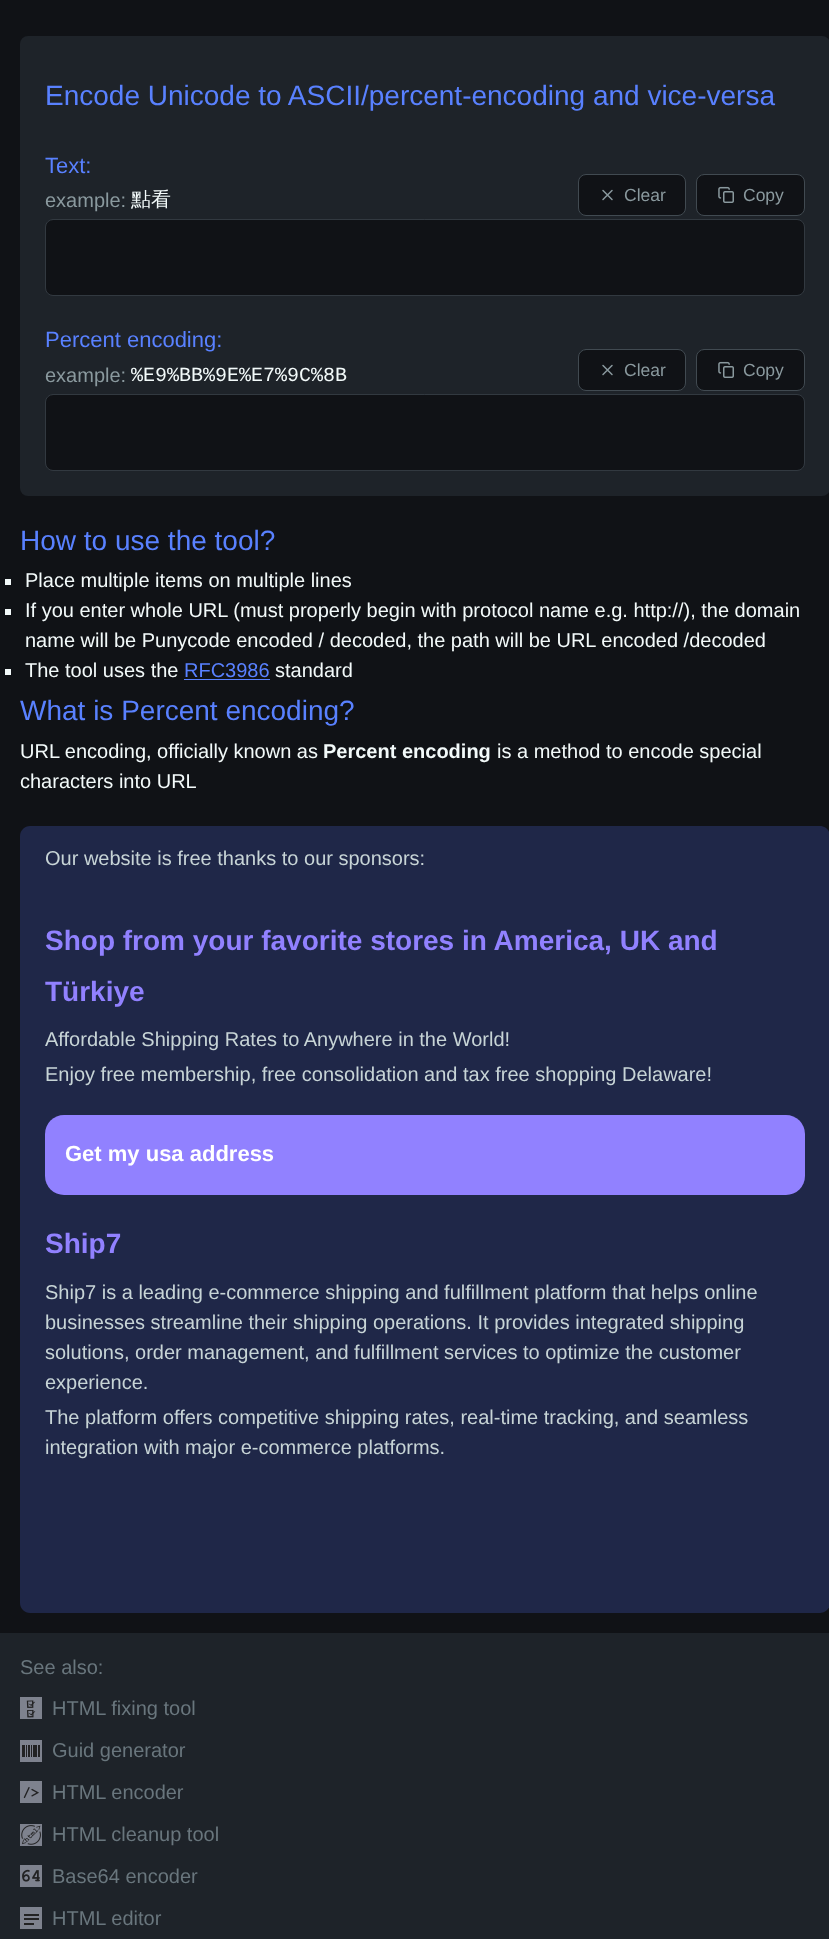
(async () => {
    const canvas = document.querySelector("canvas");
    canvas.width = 829;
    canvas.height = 1939;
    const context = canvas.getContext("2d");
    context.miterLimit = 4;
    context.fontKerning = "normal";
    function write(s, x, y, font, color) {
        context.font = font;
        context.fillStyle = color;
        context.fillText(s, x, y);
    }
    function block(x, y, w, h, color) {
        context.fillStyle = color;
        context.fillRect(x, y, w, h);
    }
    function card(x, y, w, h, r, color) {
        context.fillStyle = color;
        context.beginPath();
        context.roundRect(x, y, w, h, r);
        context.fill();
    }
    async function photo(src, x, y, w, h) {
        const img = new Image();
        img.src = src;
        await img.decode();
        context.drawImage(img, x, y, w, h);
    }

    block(0, 0, 829, 1939, "rgb(16, 18, 22)");
    card(20, 36, 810, 460, 8, "rgb(30, 35, 41)");
    write("Encode Unicode to ASCII/percent-encoding and vice-versa", 45, 105, "28px Liberation Sans", "rgb(89, 129, 255)");
    write("Text:", 45, 173, "22px Liberation Sans", "rgb(89, 129, 255)");
    write("example:", 45, 207, "20px Liberation Sans", "rgb(138, 153, 158)");
    write("點看", 131, 206, "500 20px WenQuanYi Zen Hei", "rgb(243, 250, 250)");
    context.fillStyle = "rgb(16, 18, 22)";
    context.beginPath();
    context.roundRect(578.5, 174.5, 107, 41, 7.5);
    context.fill();
    context.strokeStyle = "rgb(65, 74, 81)";
    context.stroke();
    context.beginPath();
    context.moveTo(612, 190.5);
    context.lineTo(603, 199.5);
    context.moveTo(603, 190.5);
    context.lineTo(612, 199.5);
    context.strokeStyle = "rgb(138, 153, 158)";
    context.lineWidth = 1.5;
    context.lineCap = "round";
    context.lineJoin = "round";
    context.stroke();
    write("Clear", 624, 201, "17.5px Liberation Sans", "rgb(138, 153, 158)");
    context.fillStyle = "rgb(16, 18, 22)";
    context.beginPath();
    context.roundRect(696.5, 174.5, 108, 41, 7.5);
    context.fill();
    context.strokeStyle = "rgb(65, 74, 81)";
    context.lineWidth = 1;
    context.lineJoin = "miter";
    context.stroke();
    await photo("media/1.png", 718, 186, 16, 17);
    write("Copy", 743, 201, "17.5px Liberation Sans", "rgb(138, 153, 158)");
    card(46, 220, 758, 75, 6, "rgb(16, 18, 22)");
    context.beginPath();
    context.roundRect(45.5, 219.5, 759, 76, 7.5);
    context.strokeStyle = "rgb(50, 57, 64)";
    context.stroke();
    write("Percent encoding:", 45, 347, "22px Liberation Sans", "rgb(89, 129, 255)");
    write("example:", 45, 382, "20px Liberation Sans", "rgb(138, 153, 158)");
    write("%E9%BB%9E%E7%9C%8B", 131, 381, "20px Liberation Mono", "rgb(243, 250, 250)");
    context.fillStyle = "rgb(16, 18, 22)";
    context.beginPath();
    context.roundRect(578.5, 349.5, 107, 41, 7.5);
    context.fill();
    context.strokeStyle = "rgb(65, 74, 81)";
    context.stroke();
    context.beginPath();
    context.moveTo(612, 365.5);
    context.lineTo(603, 374.5);
    context.moveTo(603, 365.5);
    context.lineTo(612, 374.5);
    context.strokeStyle = "rgb(138, 153, 158)";
    context.lineWidth = 1.5;
    context.lineJoin = "round";
    context.stroke();
    write("Clear", 624, 376, "17.5px Liberation Sans", "rgb(138, 153, 158)");
    context.fillStyle = "rgb(16, 18, 22)";
    context.beginPath();
    context.roundRect(696.5, 349.5, 108, 41, 7.5);
    context.fill();
    context.strokeStyle = "rgb(65, 74, 81)";
    context.lineWidth = 1;
    context.lineJoin = "miter";
    context.stroke();
    await photo("media/1.png", 718, 361, 16, 17);
    write("Copy", 743, 376, "17.5px Liberation Sans", "rgb(138, 153, 158)");
    card(46, 395, 758, 75, 6, "rgb(16, 18, 22)");
    context.beginPath();
    context.roundRect(45.5, 394.5, 759, 76, 7.5);
    context.strokeStyle = "rgb(50, 57, 64)";
    context.stroke();
    write("How to use the tool?", 20, 550, "28px Liberation Sans", "rgb(89, 129, 255)");
    block(5, 579, 6, 6, "rgb(243, 250, 250)");
    write("Place multiple items on multiple lines", 25, 587, "20px Liberation Sans", "rgb(243, 250, 250)");
    block(5, 609, 6, 6, "rgb(243, 250, 250)");
    write("If you enter whole URL (must properly begin with protocol name e.g. http://), the domain", 25, 617, "20px Liberation Sans", "rgb(243, 250, 250)");
    write("name will be Punycode encoded / decoded, the path will be URL encoded /decoded", 25, 647, "20px Liberation Sans", "rgb(243, 250, 250)");
    block(5, 669, 6, 6, "rgb(243, 250, 250)");
    write("The tool uses the", 25, 677, "20px Liberation Sans", "rgb(243, 250, 250)");
    write("RFC3986", 184, 677, "20px Liberation Sans", "rgb(89, 129, 255)");
    block(184, 679, 86, 1, "rgb(89, 129, 255)");
    write("standard", 275, 677, "20px Liberation Sans", "rgb(243, 250, 250)");
    write("What is Percent encoding?", 20, 720, "28px Liberation Sans", "rgb(89, 129, 255)");
    write("URL encoding, officially known as", 20, 758, "20px Liberation Sans", "rgb(243, 250, 250)");
    write("Percent encoding", 323, 758, "bold 20px Liberation Sans", "rgb(243, 250, 250)");
    write("is a method to encode special", 497, 758, "20px Liberation Sans", "rgb(243, 250, 250)");
    write("characters into URL", 20, 788, "20px Liberation Sans", "rgb(243, 250, 250)");
    context.fillStyle = "rgb(31, 39, 72)";
    context.beginPath();
    context.moveTo(30, 826);
    context.lineTo(820, 826);
    context.bezierCurveTo(825.5, 826, 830, 830.5, 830, 836);
    context.lineTo(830, 891);
    context.lineTo(20, 891);
    context.lineTo(20, 836);
    context.bezierCurveTo(20, 830.5, 24.5, 826, 30, 826);
    context.closePath();
    context.fill();
    write("Our website is free thanks to our sponsors:", 45, 865, "20px Liberation Sans", "rgb(199, 212, 214)");
    context.fillStyle = "rgb(31, 39, 72)";
    context.beginPath();
    context.moveTo(20, 891);
    context.lineTo(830, 891);
    context.lineTo(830, 1603);
    context.bezierCurveTo(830, 1608.5, 825.5, 1613, 820, 1613);
    context.lineTo(30, 1613);
    context.bezierCurveTo(24.5, 1613, 20, 1608.5, 20, 1603);
    context.closePath();
    context.fill();
    write("Shop from your favorite stores in ‍America, UK and", 45, 950, "bold 28px Liberation Sans", "rgb(145, 129, 255)");
    write("Türkiye", 45, 1001, "bold 28px Liberation Sans", "rgb(145, 129, 255)");
    write("Affordable Shipping Rates to Anywhere in the World!", 45, 1046, "20px Liberation Sans", "rgb(199, 212, 214)");
    write("Enjoy free membership, free consolidation and tax free shopping Delaware!", 45, 1081, "20px Liberation Sans", "rgb(199, 212, 214)");
    card(45, 1115, 760, 80, 19, "rgb(145, 129, 255)");
    write("Get my usa address", 65, 1161, "bold 22px Liberation Sans", "rgb(255, 255, 255)");
    write("Ship7", 45, 1253, "bold 28px Liberation Sans", "rgb(145, 129, 255)");
    write("Ship7 is a leading e-commerce shipping and fulfillment platform that helps online", 45, 1299, "20px Liberation Sans", "rgb(199, 212, 214)");
    write("businesses streamline their shipping operations. It provides integrated shipping", 45, 1329, "20px Liberation Sans", "rgb(199, 212, 214)");
    write("solutions, order management, and fulfillment services to optimize the customer", 45, 1359, "20px Liberation Sans", "rgb(199, 212, 214)");
    write("experience.", 45, 1389, "20px Liberation Sans", "rgb(199, 212, 214)");
    write("The platform offers competitive shipping rates, real-time tracking, and seamless", 45, 1424, "20px Liberation Sans", "rgb(199, 212, 214)");
    write("integration with major e-commerce platforms.", 45, 1454, "20px Liberation Sans", "rgb(199, 212, 214)");
    block(0, 1633, 829, 306, "rgb(30, 35, 41)");
    write("See also:", 20, 1674, "20px Liberation Sans", "rgb(105, 118, 125)");
    await photo("media/2.png", 20, 1697, 22, 22);
    write("HTML fixing tool", 52, 1715, "20px Liberation Sans", "rgb(105, 118, 125)");
    await photo("media/3.png", 20, 1740, 22, 22);
    write("Guid generator", 52, 1757, "20px Liberation Sans", "rgb(105, 118, 125)");
    await photo("media/4.png", 20, 1781, 22, 22);
    write("HTML encoder", 52, 1799, "20px Liberation Sans", "rgb(105, 118, 125)");
    await photo("media/5.png", 20, 1824, 22, 22);
    write("HTML cleanup tool", 52, 1841, "20px Liberation Sans", "rgb(105, 118, 125)");
    await photo("media/6.png", 20, 1865, 22, 22);
    write("Base64 encoder", 52, 1883, "20px Liberation Sans", "rgb(105, 118, 125)");
    block(20, 1907, 22, 22, "rgb(126, 130, 142)");
    block(24, 1914, 15, 2, "rgb(34, 34, 35)");
    block(24, 1918, 15, 2, "rgb(34, 34, 35)");
    block(24, 1923, 10, 2, "rgb(34, 34, 35)");
    write("HTML editor", 52, 1925, "20px Liberation Sans", "rgb(105, 118, 125)");
})();
